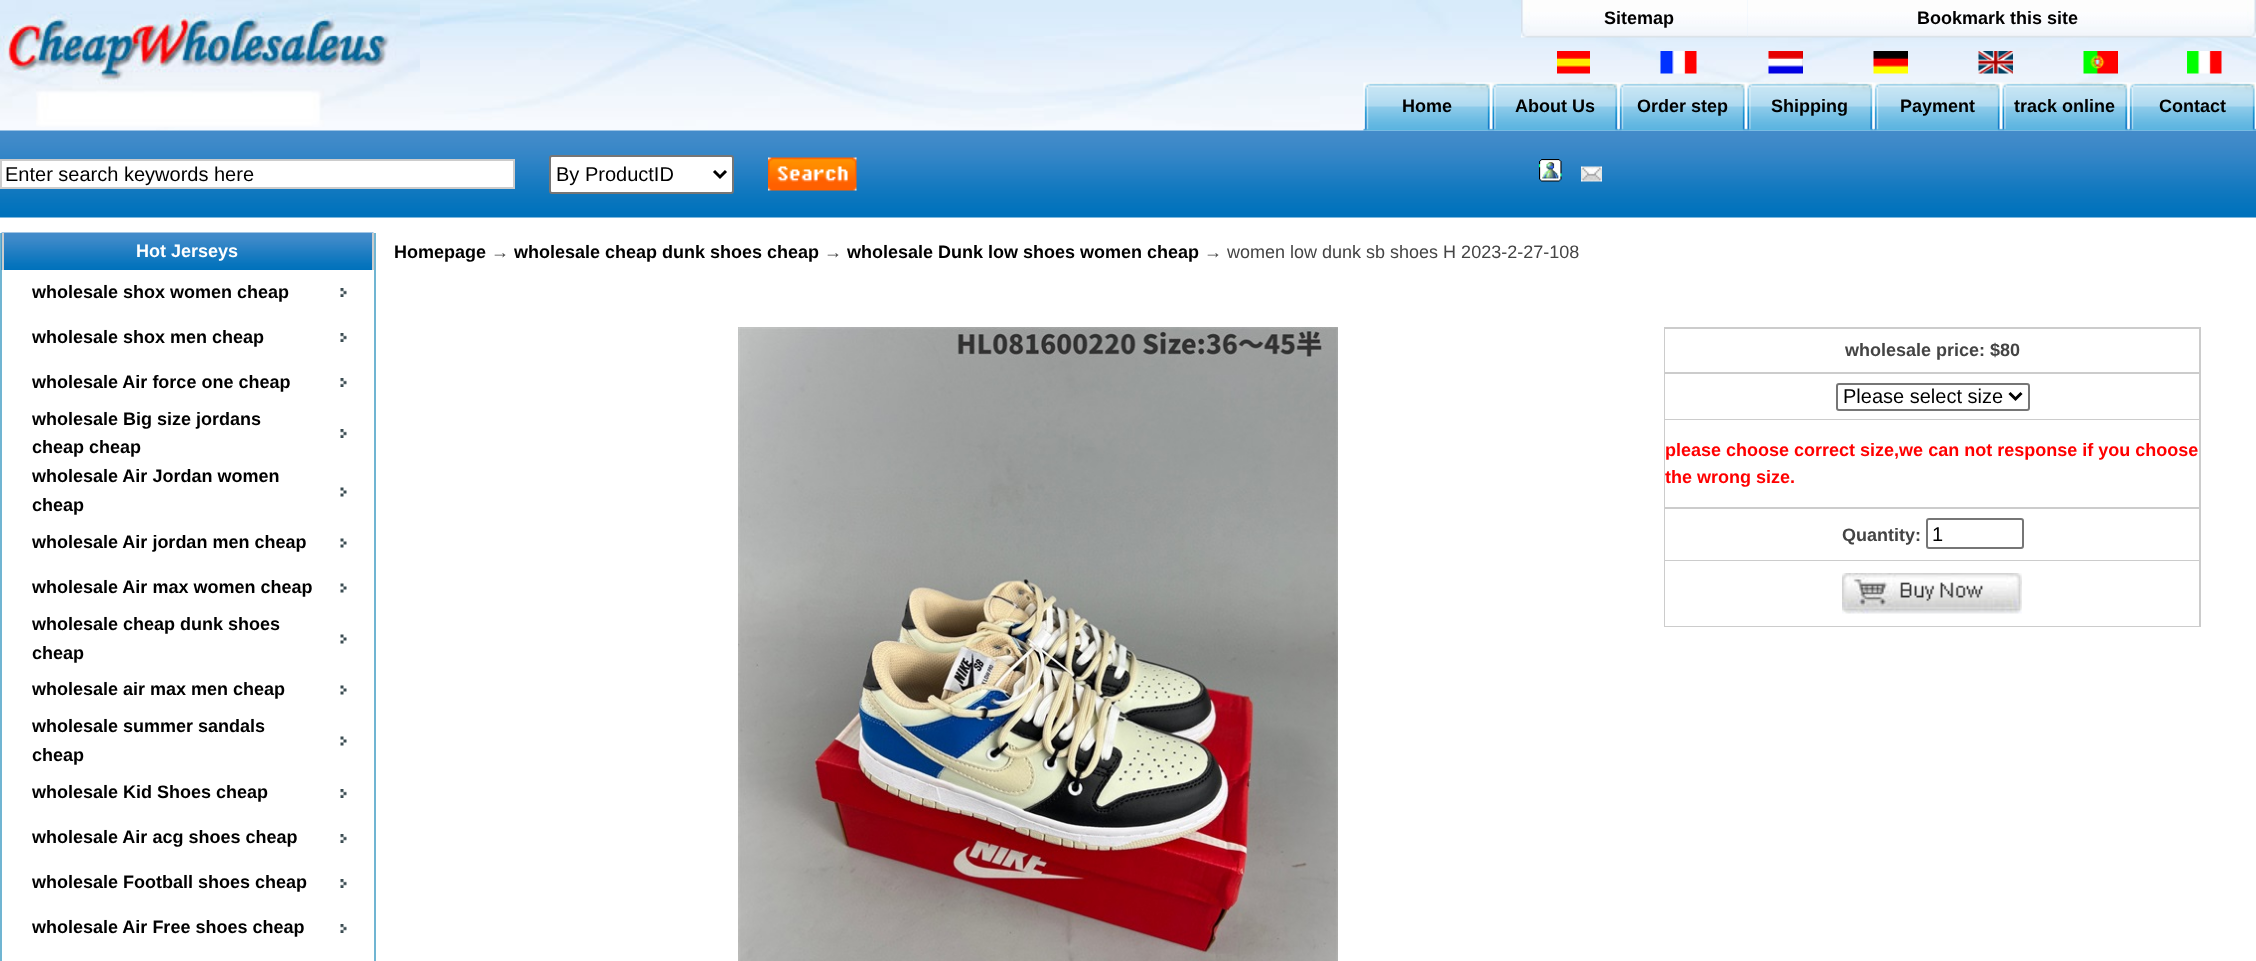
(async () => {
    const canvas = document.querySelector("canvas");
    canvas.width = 2256;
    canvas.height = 961;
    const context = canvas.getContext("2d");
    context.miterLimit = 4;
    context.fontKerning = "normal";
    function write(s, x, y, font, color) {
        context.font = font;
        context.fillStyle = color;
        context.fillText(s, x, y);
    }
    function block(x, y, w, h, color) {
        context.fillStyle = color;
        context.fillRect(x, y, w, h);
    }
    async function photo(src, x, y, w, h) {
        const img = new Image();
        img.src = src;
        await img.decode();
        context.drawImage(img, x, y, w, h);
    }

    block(0, 0, 2256, 961, "rgb(255, 255, 255)");
    await photo("media/1.png", 0, 0, 2256, 131);
    await photo("media/2.png", 0, 0, 420, 127);
    await photo("media/3.png", 1521, 0, 9, 38);
    await photo("media/4.png", 1530, 0, 218, 38);
    write("Sitemap", 1604, 24, "bold 18px Liberation Sans", "rgb(0, 0, 0)");
    await photo("media/5.png", 1747, 0, 500, 38);
    write("Bookmark this site", 1917, 24, "bold 18px Liberation Sans", "rgb(0, 0, 0)");
    await photo("media/6.png", 2247, 0, 9, 38);
    await photo("media/7.png", 1557, 51, 33, 23);
    await photo("media/8.png", 1660, 51, 37, 23);
    await photo("media/9.png", 1768, 51, 35, 23);
    await photo("media/10.png", 1873, 51, 35, 23);
    await photo("media/11.png", 1978, 51, 35, 23);
    await photo("media/12.png", 2083, 51, 35, 23);
    await photo("media/13.png", 2187, 51, 35, 23);
    await photo("media/21.png", 0, 130, 2256, 88);
    await photo("media/14.png", 1363, 82, 128, 49);
    write("Home", 1402, 112, "bold 18px Liberation Sans", "rgb(0, 0, 0)");
    await photo("media/15.png", 1491, 82, 128, 49);
    write("About Us", 1515, 112, "bold 18px Liberation Sans", "rgb(0, 0, 0)");
    await photo("media/16.png", 1618, 82, 128, 49);
    write("Order step", 1637, 112, "bold 18px Liberation Sans", "rgb(0, 0, 0)");
    await photo("media/17.png", 1746, 82, 128, 49);
    write("Shipping", 1771, 112, "bold 18px Liberation Sans", "rgb(0, 0, 0)");
    await photo("media/18.png", 1873, 82, 128, 49);
    write("Payment", 1900, 112, "bold 18px Liberation Sans", "rgb(0, 0, 0)");
    await photo("media/19.png", 2001, 82, 128, 49);
    write("track online", 2014, 112, "bold 18px Liberation Sans", "rgb(0, 0, 0)");
    await photo("media/20.png", 2128, 82, 128, 49);
    write("Contact", 2159, 112, "bold 18px Liberation Sans", "rgb(0, 0, 0)");
    context.fillStyle = "rgb(255, 255, 255)";
    context.beginPath();
    context.rect(1, 160, 513, 28);
    context.fill();
    context.strokeStyle = "rgb(204, 204, 204)";
    context.lineWidth = 2;
    context.stroke();
    write("Enter search keywords here", 5, 181, "20px Liberation Sans", "rgb(0, 0, 0)");
    context.fillStyle = "rgb(255, 255, 255)";
    context.beginPath();
    context.roundRect(550, 156, 183, 37, 2);
    context.fill();
    context.strokeStyle = "rgb(118, 118, 118)";
    context.stroke();
    context.beginPath();
    context.moveTo(714, 171);
    context.lineTo(720, 177);
    context.lineTo(726, 171);
    context.strokeStyle = "rgb(0, 0, 0)";
    context.lineWidth = 3;
    context.stroke();
    write("By ProductID", 556, 181, "20px Liberation Sans", "rgb(0, 0, 0)");
    await photo("media/22.png", 768, 157, 89, 34);
    await photo("media/23.png", 1539, 159, 23, 23);
    await photo("media/24.png", 1581, 166, 21, 16);
    block(374, 233, 2, 728, "rgb(112, 181, 210)");
    block(0, 233, 2, 728, "rgb(112, 181, 210)");
    await photo("media/25.png", 1, 232, 373, 38);
    block(372, 233, 2, 37, "rgb(204, 204, 204)");
    block(2, 233, 2, 37, "rgb(204, 204, 204)");
    write("Hot Jerseys", 136, 257, "bold 18px Liberation Sans", "rgb(255, 255, 255)");
    write("wholesale shox women cheap", 32, 298, "bold 18px Liberation Sans", "rgb(0, 0, 0)");
    await photo("media/26.png", 340, 288, 7, 9);
    write("wholesale shox men cheap", 32, 343, "bold 18px Liberation Sans", "rgb(0, 0, 0)");
    await photo("media/26.png", 340, 333, 7, 9);
    write("wholesale Air force one cheap", 32, 388, "bold 18px Liberation Sans", "rgb(0, 0, 0)");
    await photo("media/26.png", 340, 378, 7, 9);
    write("wholesale Big size jordans", 32, 425, "bold 18px Liberation Sans", "rgb(0, 0, 0)");
    write("cheap cheap", 32, 453, "bold 18px Liberation Sans", "rgb(0, 0, 0)");
    await photo("media/26.png", 340, 429, 7, 9);
    write("wholesale Air Jordan women", 32, 482, "bold 18px Liberation Sans", "rgb(0, 0, 0)");
    write("cheap", 32, 511, "bold 18px Liberation Sans", "rgb(0, 0, 0)");
    await photo("media/27.png", 340, 487, 7, 10);
    write("wholesale Air jordan men cheap", 32, 548, "bold 18px Liberation Sans", "rgb(0, 0, 0)");
    await photo("media/27.png", 340, 538, 7, 10);
    write("wholesale Air max women cheap", 32, 593, "bold 18px Liberation Sans", "rgb(0, 0, 0)");
    await photo("media/27.png", 340, 583, 7, 10);
    write("wholesale cheap dunk shoes", 32, 630, "bold 18px Liberation Sans", "rgb(0, 0, 0)");
    write("cheap", 32, 659, "bold 18px Liberation Sans", "rgb(0, 0, 0)");
    await photo("media/27.png", 340, 634, 7, 10);
    write("wholesale air max men cheap", 32, 695, "bold 18px Liberation Sans", "rgb(0, 0, 0)");
    await photo("media/27.png", 340, 685, 7, 10);
    write("wholesale summer sandals", 32, 732, "bold 18px Liberation Sans", "rgb(0, 0, 0)");
    write("cheap", 32, 761, "bold 18px Liberation Sans", "rgb(0, 0, 0)");
    await photo("media/27.png", 340, 736, 7, 10);
    write("wholesale Kid Shoes cheap", 32, 798, "bold 18px Liberation Sans", "rgb(0, 0, 0)");
    await photo("media/26.png", 340, 789, 7, 9);
    write("wholesale Air acg shoes cheap", 32, 843, "bold 18px Liberation Sans", "rgb(0, 0, 0)");
    await photo("media/26.png", 340, 834, 7, 9);
    write("wholesale Football shoes cheap", 32, 888, "bold 18px Liberation Sans", "rgb(0, 0, 0)");
    await photo("media/26.png", 340, 879, 7, 9);
    write("wholesale Air Free shoes cheap", 32, 933, "bold 18px Liberation Sans", "rgb(0, 0, 0)");
    await photo("media/26.png", 340, 924, 7, 9);
    write("Homepage", 394, 258, "bold 18px Liberation Sans", "rgb(0, 0, 0)");
    write("→", 491, 258, "18px Liberation Sans", "rgb(68, 68, 68)");
    write("wholesale cheap dunk shoes cheap", 514, 258, "bold 18px Liberation Sans", "rgb(0, 0, 0)");
    write("→", 824, 258, "18px Liberation Sans", "rgb(68, 68, 68)");
    write("wholesale Dunk low shoes women cheap", 847, 258, "bold 18px Liberation Sans", "rgb(0, 0, 0)");
    write("→ women low dunk sb shoes H 2023-2-27-108", 1204, 258, "18px Liberation Sans", "rgb(68, 68, 68)");
    await photo("media/28.png", 738, 327, 600, 634);
    block(1664, 327, 537, 300, "rgb(204, 204, 204)");
    block(1665, 329, 534, 43, "rgb(255, 255, 255)");
    write("wholesale price: $80", 1845, 356, "bold 18px Liberation Sans", "rgb(68, 68, 68)");
    block(1665, 374, 534, 45, "rgb(255, 255, 255)");
    context.beginPath();
    context.roundRect(1837, 384, 192, 26, 2);
    context.strokeStyle = "rgb(118, 118, 118)";
    context.lineWidth = 2;
    context.stroke();
    context.beginPath();
    context.moveTo(2009.5, 393);
    context.lineTo(2015.5, 399);
    context.lineTo(2021.5, 393);
    context.strokeStyle = "rgb(0, 0, 0)";
    context.lineWidth = 3;
    context.stroke();
    write("Please select size", 1843, 403, "20px Liberation Sans", "rgb(0, 0, 0)");
    block(1665, 420, 534, 87, "rgb(255, 255, 255)");
    write("please choose correct size,we can not response if you choose", 1665, 456, "bold 18px Liberation Sans", "rgb(255, 0, 0)");
    write("the wrong size.", 1665, 483, "bold 18px Liberation Sans", "rgb(255, 0, 0)");
    block(1665, 509, 534, 51, "rgb(255, 255, 255)");
    write("Quantity:", 1842, 541, "bold 18px Liberation Sans", "rgb(68, 68, 68)");
    context.beginPath();
    context.roundRect(1927, 519, 96, 29, 2);
    context.strokeStyle = "rgb(118, 118, 118)";
    context.lineWidth = 2;
    context.stroke();
    write("1", 1932, 541, "20px Liberation Sans", "rgb(0, 0, 0)");
    block(1665, 561, 534, 65, "rgb(255, 255, 255)");
    await photo("media/29.png", 1842, 573, 180, 41);
})();
